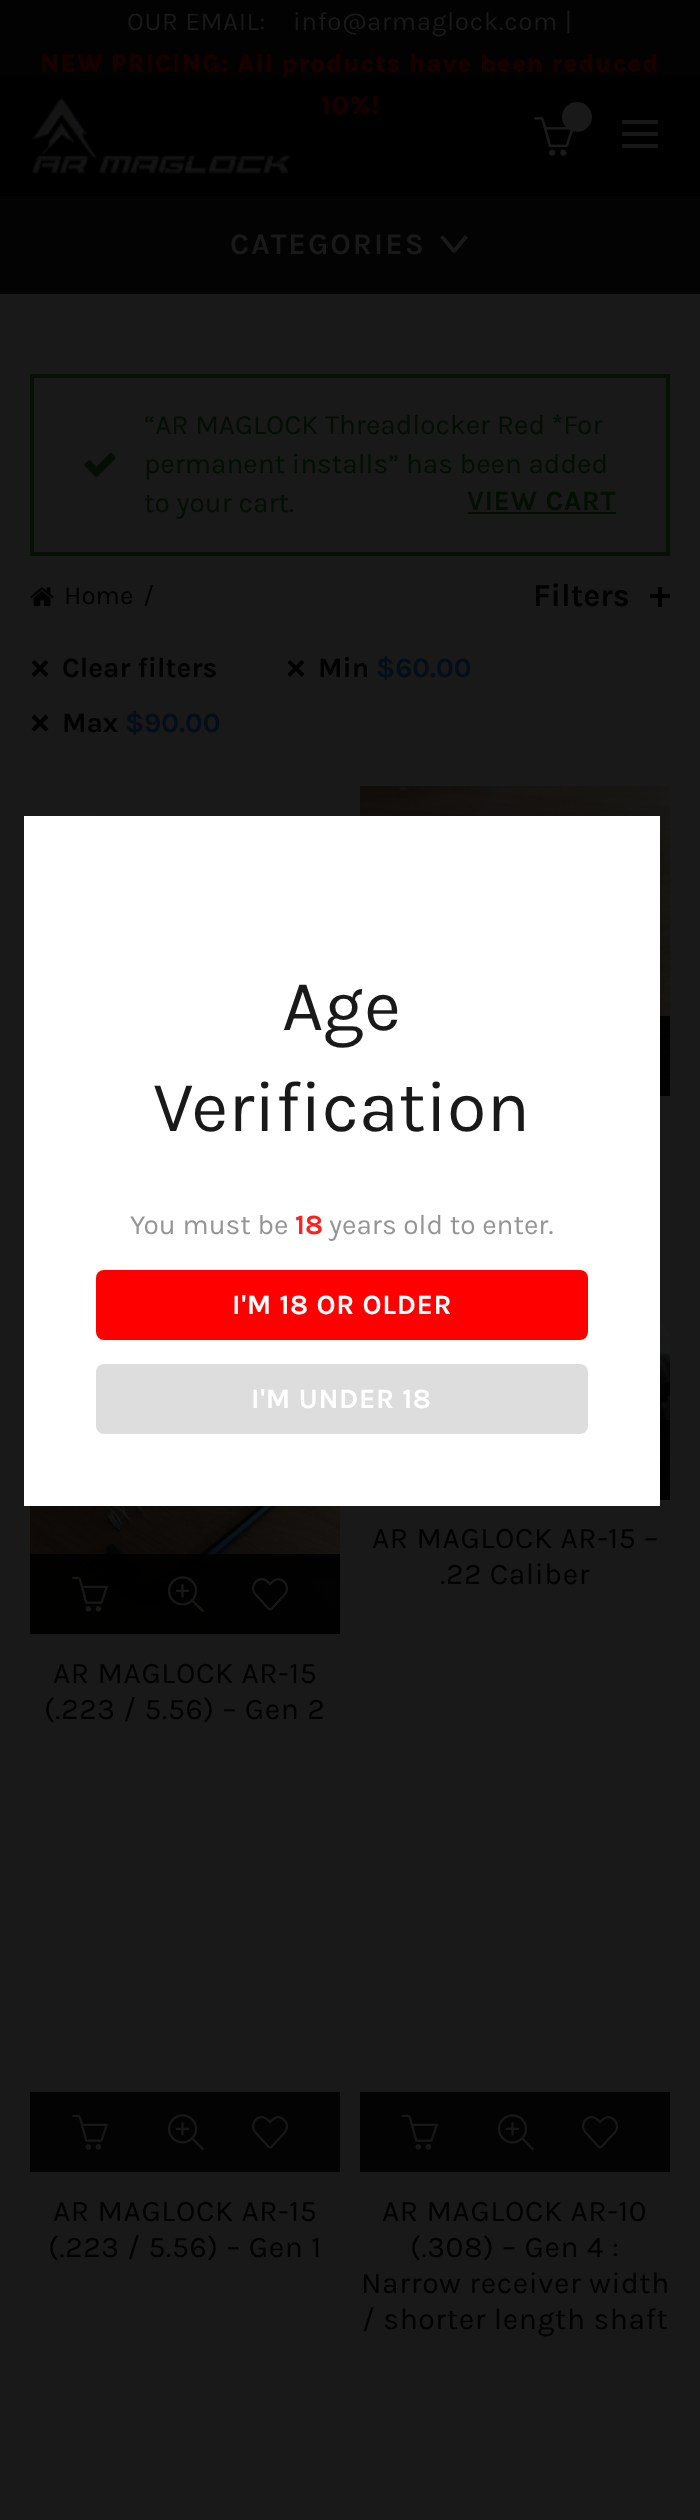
(async () => {
    const canvas = document.querySelector("canvas");
    canvas.width = 700;
    canvas.height = 2520;
    const context = canvas.getContext("2d");
    context.miterLimit = 4;
    context.fontKerning = "normal";
    function write(s, x, y, font, color) {
        context.font = font;
        context.fillStyle = color;
        context.fillText(s, x, y);
    }
    function block(x, y, w, h, color) {
        context.fillStyle = color;
        context.fillRect(x, y, w, h);
    }
    function card(x, y, w, h, r, color) {
        context.fillStyle = color;
        context.beginPath();
        context.roundRect(x, y, w, h, r);
        context.fill();
    }
    async function photo(src, x, y, w, h) {
        const img = new Image();
        img.src = src;
        await img.decode();
        context.drawImage(img, x, y, w, h);
    }

    block(0, 0, 700, 2520, "rgb(25, 25, 25)");
    block(0, 0, 700, 76, "rgb(2, 2, 2)");
    context.letterSpacing = "0.6px";
    write("OUR EMAIL:", 127, 30, "26px Karla", "rgb(25, 25, 25)");
    write("info@armaglock.com |", 293, 30, "26px Karla", "rgb(25, 25, 25)");
    block(0, 76, 700, 120, "rgb(0, 0, 0)");
    write("NEW PRICING: All products have been reduced", 40, 72, "800 26px Karla", "rgb(25, 0, 0)");
    write("10%!", 321, 114, "800 26px Karla", "rgb(25, 0, 0)");
    await photo("media/1.png", 31, 97, 260, 78);
    await photo("media/2.png", 534, 117, 39, 39);
    context.fillStyle = "rgb(25, 25, 25)";
    context.beginPath();
    context.arc(577, 117, 15, 0, Math.PI * 2);
    context.fill();
    block(622, 132, 36, 4, "rgb(23, 23, 23)");
    block(622, 120, 36, 4, "rgb(23, 23, 23)");
    block(622, 144, 36, 4, "rgb(23, 23, 23)");
    block(0, 196, 700, 96, "rgb(3, 3, 3)");
    block(0, 292, 700, 2, "rgb(5, 5, 5)");
    context.letterSpacing = "2px";
    write("CATEGORIES", 230, 254, "bold 30px Karla", "rgb(25, 25, 25)");
    context.beginPath();
    context.moveTo(452, 250.5);
    context.lineTo(465, 235);
    context.lineTo(468, 237.5);
    context.lineTo(455, 253);
    context.closePath();
    context.fill();
    context.beginPath();
    context.moveTo(443, 235);
    context.lineTo(456, 250.5);
    context.lineTo(453, 253);
    context.lineTo(440, 237.5);
    context.closePath();
    context.fill();
    context.strokeStyle = "rgb(7, 15, 7)";
    context.lineWidth = 4;
    context.strokeRect(32, 376, 636, 178);
    context.letterSpacing = "0px";
    write("“AR MAGLOCK Threadlocker Red *For", 144, 434, "28px Karla", "rgb(5, 14, 5)");
    await photo("media/3.png", 84, 453, 32, 24);
    write("permanent installs” has been added", 144, 473, "28px Karla", "rgb(5, 14, 5)");
    write("to your cart.", 144, 512, "28px Karla", "rgb(5, 14, 5)");
    context.letterSpacing = "0.6px";
    write("VIEW CART", 467, 510, "bold 28px Karla", "rgb(5, 14, 5)");
    block(468, 512, 148, 2, "rgb(5, 14, 5)");
    await photo("media/4.png", 30, 587, 24, 19);
    context.letterSpacing = "0px";
    write("Home", 64, 604, "26px Karla", "rgb(3, 2, 2)");
    write("/", 143, 604, "26px Karla", "rgb(3, 2, 2)");
    write("Filters", 533, 606, "bold 32px Karla", "rgb(3, 2, 2)");
    block(658, 587, 4, 20, "rgb(3, 2, 2)");
    block(650, 594, 20, 4, "rgb(3, 2, 2)");
    context.beginPath();
    context.moveTo(290, 660);
    context.lineTo(304.5, 674);
    context.lineTo(301.5, 677);
    context.lineTo(287.5, 662.5);
    context.closePath();
    context.fill();
    write("Min", 318, 677, "bold 28px Karla", "rgb(3, 2, 2)");
    write("$60.00", 376, 677, "bold 28px Karla", "rgb(4, 14, 24)");
    context.fillStyle = "rgb(3, 2, 2)";
    context.beginPath();
    context.moveTo(287.5, 674);
    context.lineTo(301.5, 660);
    context.lineTo(304.5, 662.5);
    context.lineTo(290, 677);
    context.closePath();
    context.fill();
    context.beginPath();
    context.moveTo(34.5, 714.5);
    context.lineTo(48.5, 729);
    context.lineTo(45.5, 731.5);
    context.lineTo(31.5, 717.5);
    context.closePath();
    context.fill();
    write("Max", 62, 732, "bold 28px Karla", "rgb(3, 2, 2)");
    write("$90.00", 125, 732, "bold 28px Karla", "rgb(4, 14, 24)");
    context.fillStyle = "rgb(3, 2, 2)";
    context.beginPath();
    context.moveTo(31.5, 729);
    context.lineTo(45.5, 714.5);
    context.lineTo(48.5, 717.5);
    context.lineTo(34.5, 731.5);
    context.closePath();
    context.fill();
    context.fillStyle = "rgb(0, 0, 0)";
    context.beginPath();
    context.moveTo(34.5, 660);
    context.lineTo(48.5, 674);
    context.lineTo(45.5, 677);
    context.lineTo(31.5, 662.5);
    context.closePath();
    context.fill();
    write("Clear filters", 62, 677, "bold 28px Karla", "rgb(3, 2, 2)");
    context.fillStyle = "rgb(0, 0, 0)";
    context.beginPath();
    context.moveTo(31.5, 674);
    context.lineTo(45.5, 660);
    context.lineTo(48.5, 662.5);
    context.lineTo(34.5, 677);
    context.closePath();
    context.fill();
    await photo("media/5.png", 52, 811, 273, 5);
    await photo("media/6.png", 360, 786, 310, 310);
    block(660, 1016, 10, 80, "rgba(0, 0, 0, 0.9)");
    await photo("media/7.png", 660, 1324, 10, 176);
    block(660, 1420, 10, 80, "rgba(0, 0, 0, 0.9)");
    context.letterSpacing = "0.6px";
    write("AR MAGLOCK AR-15 –", 372, 1548, "30px Karla", "rgb(3, 2, 2)");
    write(".22 Caliber", 440, 1584, "30px Karla", "rgb(3, 2, 2)");
    await photo("media/8.png", 30, 1506, 310, 128);
    block(30, 1554, 310, 80, "rgba(0, 0, 0, 0.9)");
    await photo("media/9.png", 72, 1576, 36, 36);
    await photo("media/10.png", 167, 1576, 37, 37);
    await photo("media/11.png", 252, 1578, 37, 33);
    write("AR MAGLOCK AR-15", 53, 1683, "30px Karla", "rgb(3, 2, 2)");
    write("(.223 / 5.56) – Gen 2", 44, 1719, "30px Karla", "rgb(3, 2, 2)");
    block(30, 2092, 310, 80, "rgb(3, 3, 3)");
    await photo("media/12.png", 72, 2114, 36, 36);
    await photo("media/13.png", 167, 2114, 37, 37);
    await photo("media/14.png", 252, 2116, 37, 33);
    write("AR MAGLOCK AR-15", 53, 2221, "30px Karla", "rgb(3, 2, 2)");
    write("(.223 / 5.56) – Gen 1", 48, 2257, "30px Karla", "rgb(3, 2, 2)");
    block(360, 2092, 310, 80, "rgb(3, 3, 3)");
    await photo("media/12.png", 402, 2114, 36, 36);
    await photo("media/13.png", 497, 2114, 37, 37);
    await photo("media/14.png", 582, 2116, 37, 33);
    write("AR MAGLOCK AR-10", 382, 2221, "30px Karla", "rgb(3, 2, 2)");
    write("(.308) – Gen 4 :", 410, 2257, "30px Karla", "rgb(3, 2, 2)");
    write("Narrow receiver width", 361, 2293, "30px Karla", "rgb(3, 2, 2)");
    write("/ shorter length shaft", 362, 2329, "30px Karla", "rgb(3, 2, 2)");
    block(24, 816, 636, 690, "rgb(255, 255, 255)");
    context.letterSpacing = "0px";
    write("Age", 282, 1030, "72px Karla", "rgb(25, 25, 25)");
    write("Verification", 153, 1131, "72px Karla", "rgb(25, 25, 25)");
    write("You must be", 130, 1234, "28px Karla", "rgb(149, 149, 149)");
    write("18", 295, 1234, "bold 28px Karla", "rgb(255, 31, 31)");
    write("years old to enter.", 329, 1234, "28px Karla", "rgb(149, 149, 149)");
    card(96, 1270, 492, 70, 8, "rgb(255, 0, 0)");
    context.letterSpacing = "0.6px";
    write("I'M 18 OR OLDER", 232, 1314, "bold 28px Karla", "rgb(255, 255, 255)");
    card(96, 1364, 492, 70, 8, "rgb(221, 221, 221)");
    write("I'M UNDER 18", 251, 1408, "bold 28px Karla", "rgb(255, 255, 255)");
})();
